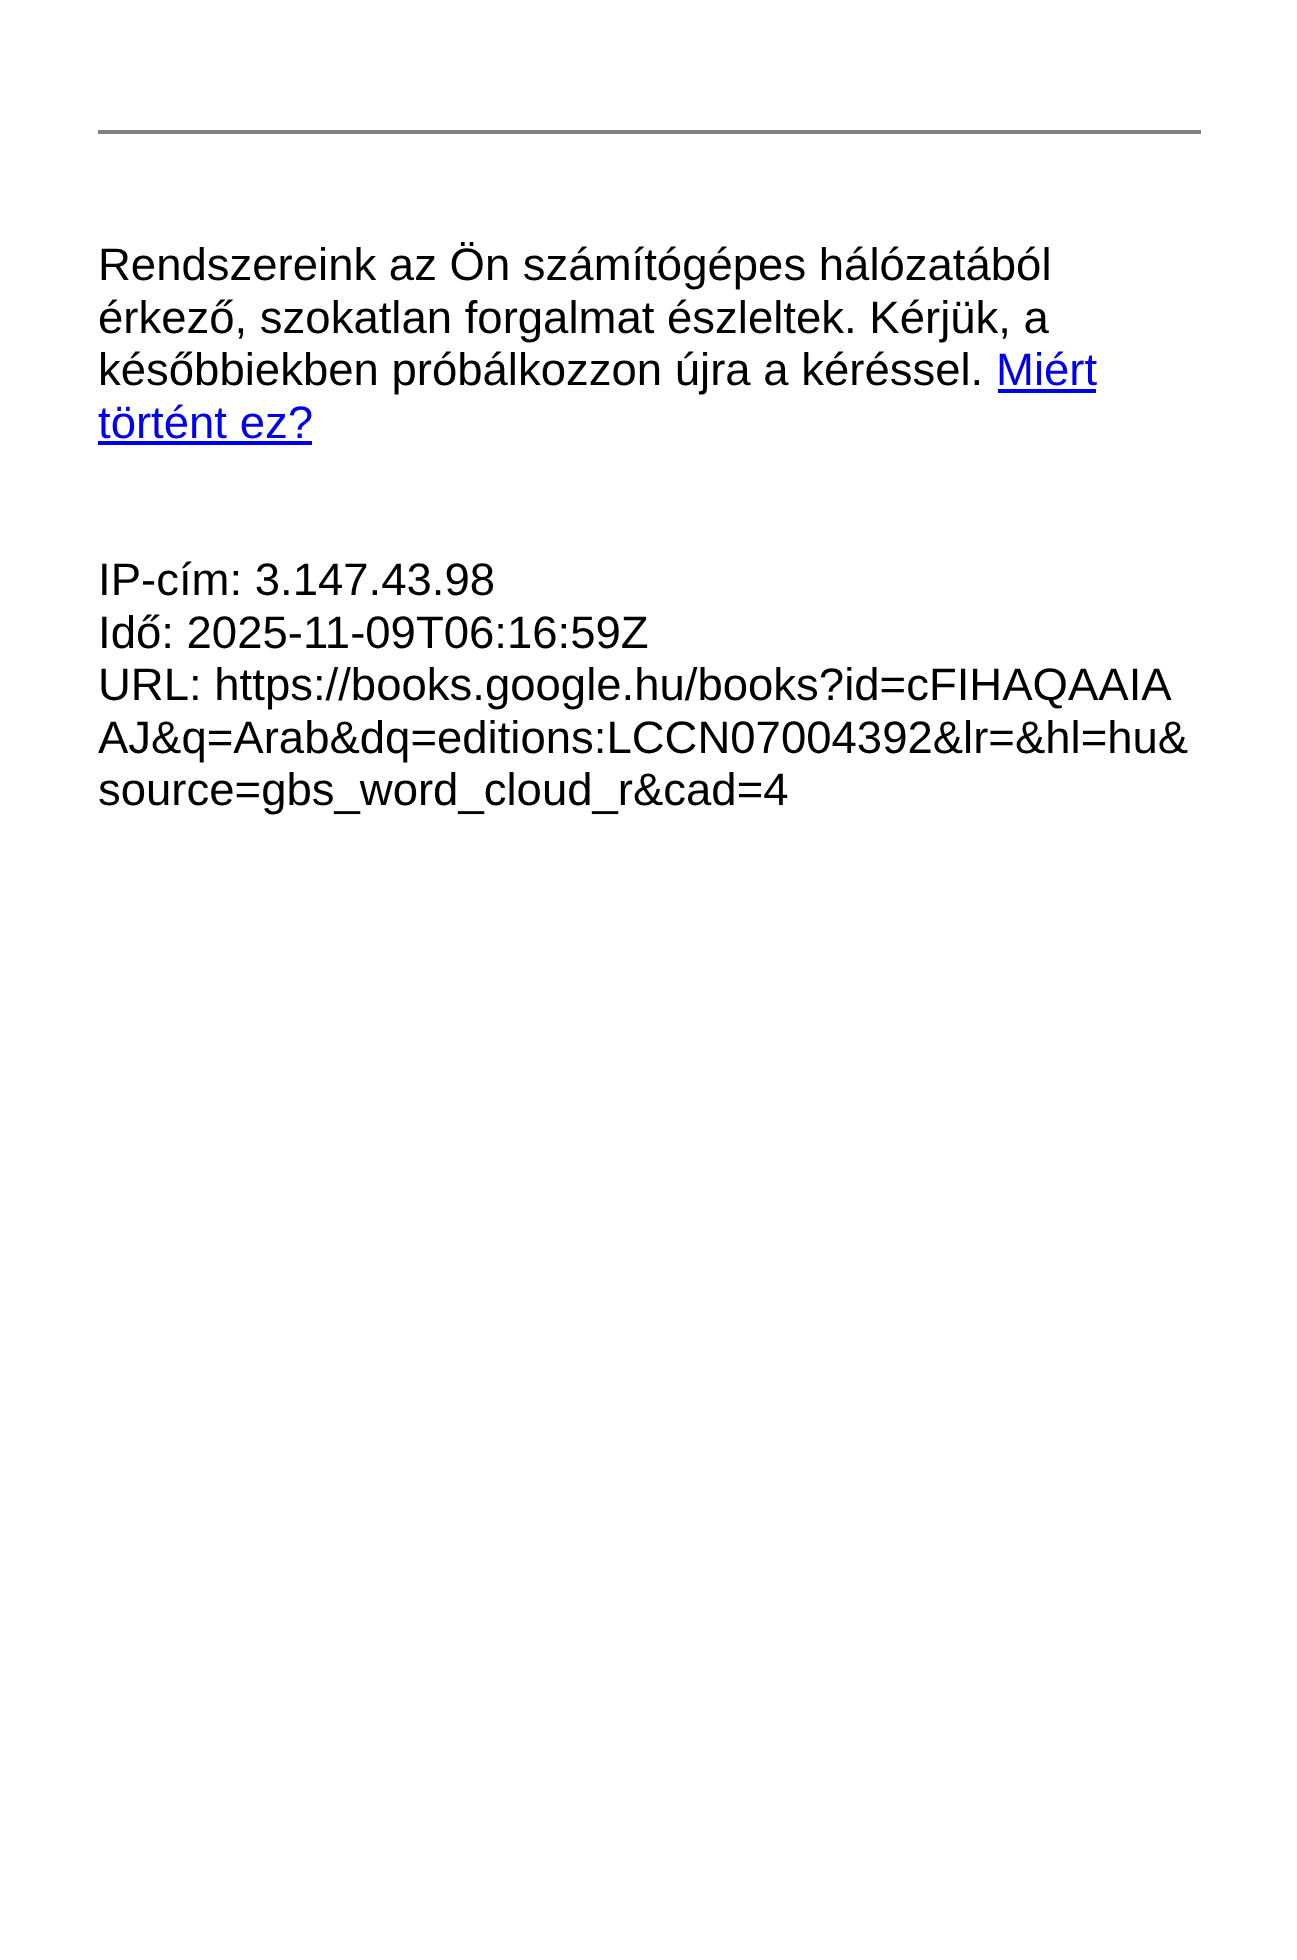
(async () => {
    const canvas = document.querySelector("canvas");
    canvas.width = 1297;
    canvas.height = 1960;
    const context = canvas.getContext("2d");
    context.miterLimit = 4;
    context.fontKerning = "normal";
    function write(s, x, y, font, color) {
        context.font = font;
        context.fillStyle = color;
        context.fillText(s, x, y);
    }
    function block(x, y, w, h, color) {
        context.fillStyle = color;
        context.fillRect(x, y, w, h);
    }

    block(0, 0, 1297, 1960, "rgb(255, 255, 255)");
    block(98, 130, 1103, 4, "rgb(128, 128, 128)");
    write("Rendszereink az Ön számítógépes hálózatából", 98, 280, "45.5px Liberation Sans", "rgb(0, 0, 0)");
    write("érkező, szokatlan forgalmat észleltek. Kérjük, a", 98, 333, "45.5px Liberation Sans", "rgb(0, 0, 0)");
    write("későbbiekben próbálkozzon újra a kéréssel.", 98, 385, "45.5px Liberation Sans", "rgb(0, 0, 0)");
    write("Miért", 996, 385, "45.5px Liberation Sans", "rgb(0, 0, 238)");
    block(998, 389, 98, 4, "rgb(0, 0, 238)");
    write("történt ez?", 98, 438, "45.5px Liberation Sans", "rgb(0, 0, 238)");
    block(98, 441, 214, 4, "rgb(0, 0, 238)");
    write("IP-cím: 3.147.43.98", 98, 595, "45.5px Liberation Sans", "rgb(0, 0, 0)");
    write("Idő: 2025-11-09T06:16:59Z", 98, 648, "45.5px Liberation Sans", "rgb(0, 0, 0)");
    write("URL: https://books.google.hu/books?id=cFIHAQAAIA", 98, 700, "45.5px Liberation Sans", "rgb(0, 0, 0)");
    write("AJ&q=Arab&dq=editions:LCCN07004392&lr=&hl=hu&", 98, 753, "45.5px Liberation Sans", "rgb(0, 0, 0)");
    write("source=gbs_word_cloud_r&cad=4", 98, 805, "45.5px Liberation Sans", "rgb(0, 0, 0)");
})();
